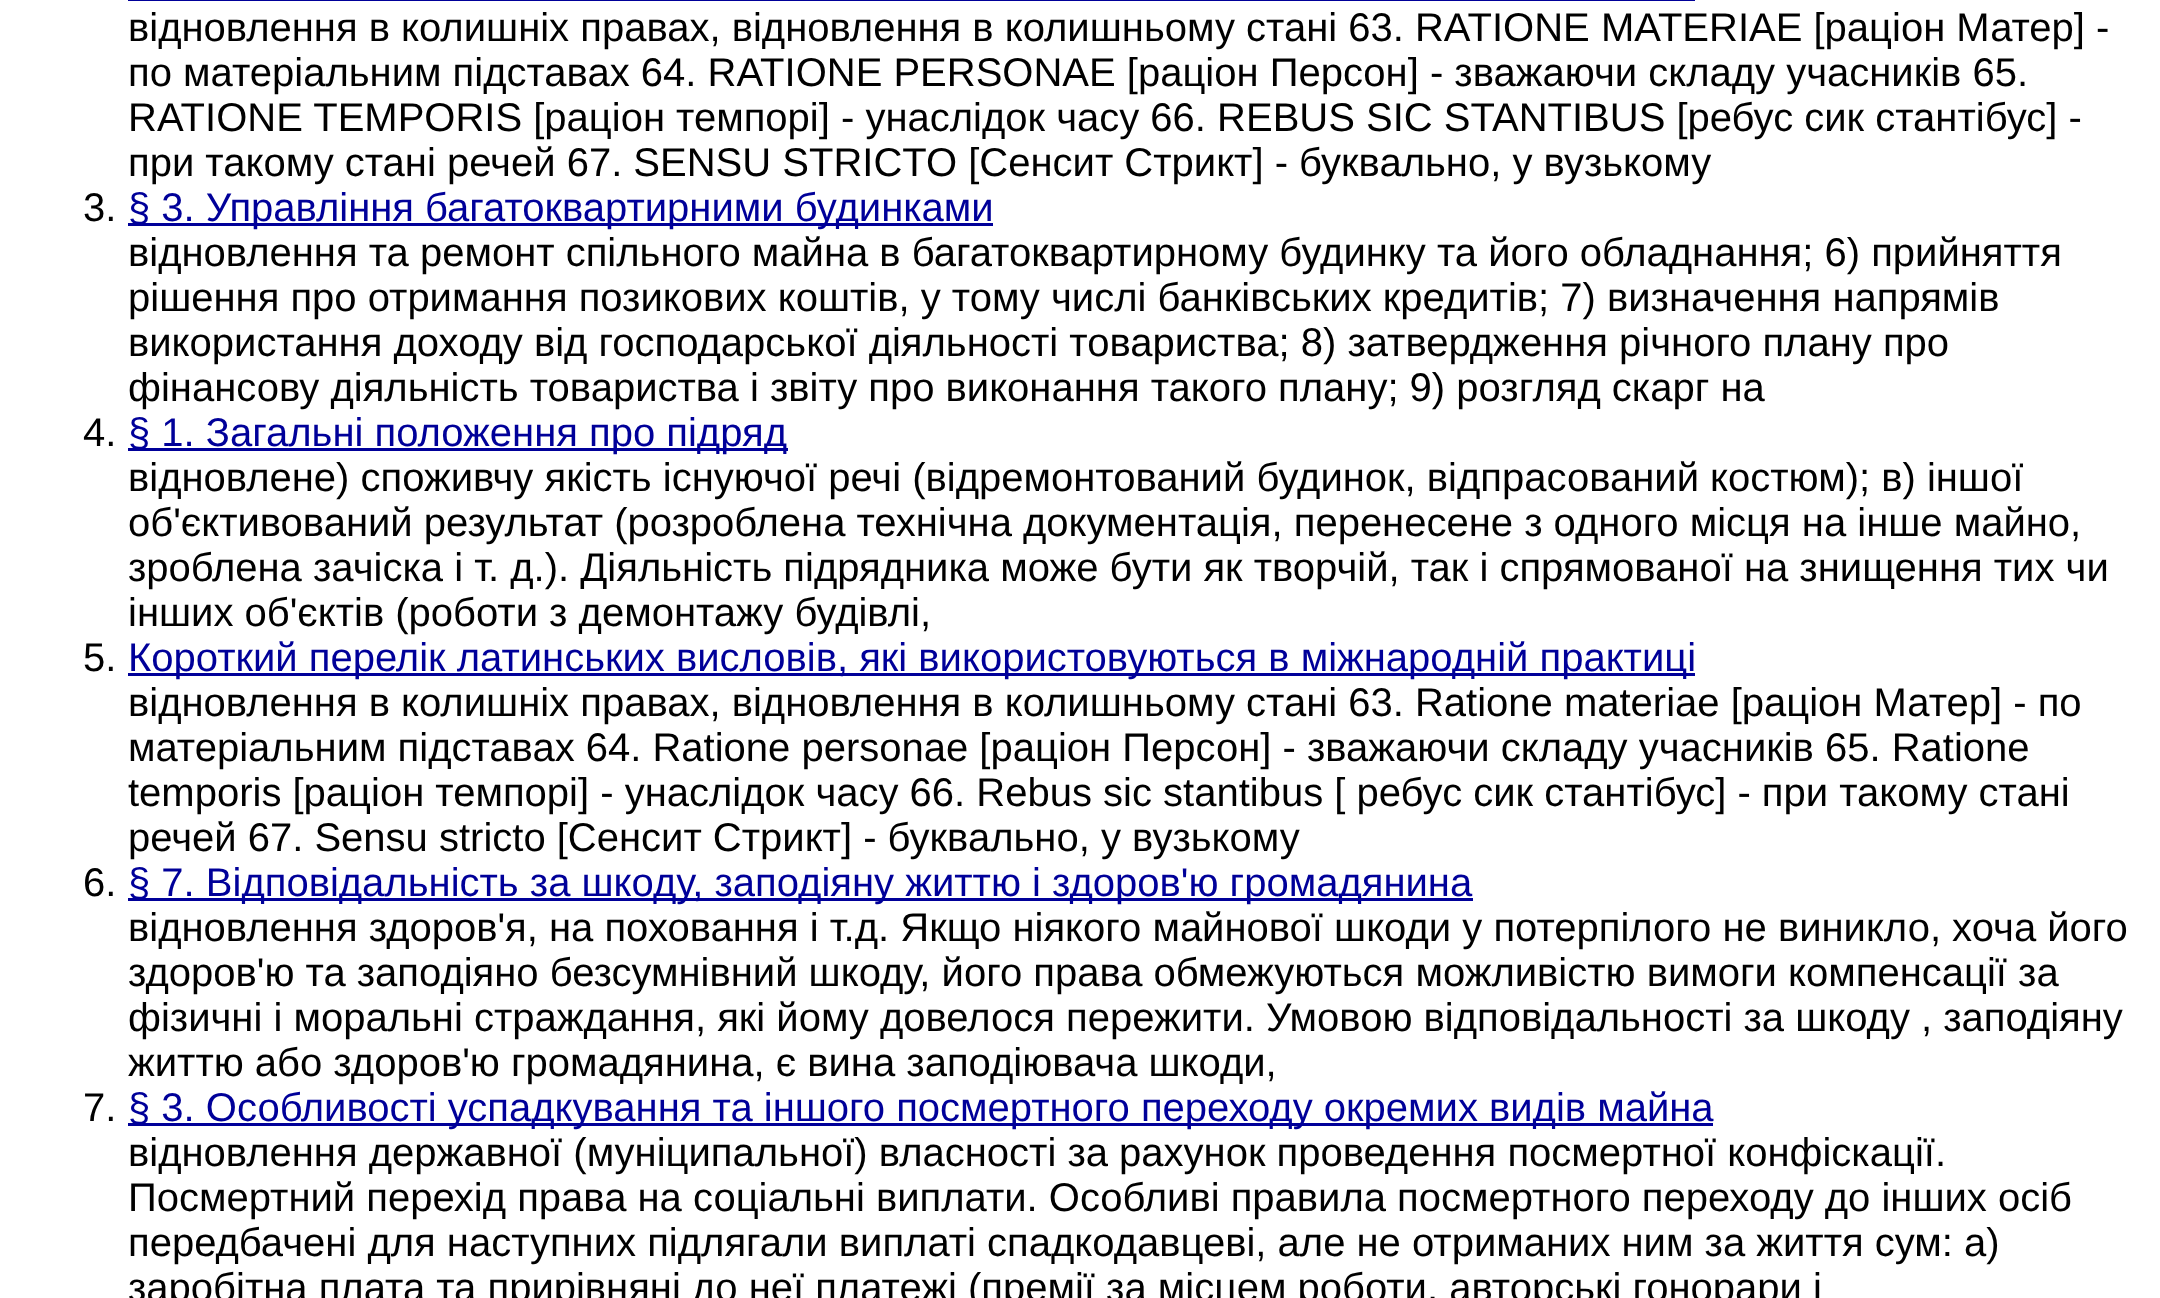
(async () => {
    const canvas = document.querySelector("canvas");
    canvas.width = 2160;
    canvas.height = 1298;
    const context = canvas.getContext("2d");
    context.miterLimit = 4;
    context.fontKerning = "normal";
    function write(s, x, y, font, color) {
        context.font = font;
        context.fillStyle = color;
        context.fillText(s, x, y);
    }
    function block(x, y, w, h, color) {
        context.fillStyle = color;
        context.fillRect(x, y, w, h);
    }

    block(0, 0, 2160, 1298, "rgb(255, 255, 255)");
    block(128, 0, 1567, 1, "rgb(0, 0, 153)");
    write("відновлення в колишніх правах, відновлення в колишньому стані 63. RATIONE MATERIAE [раціон Матер] -", 128, 41, "40px Liberation Sans", "rgb(0, 0, 0)");
    write("по матеріальним підставах 64. RATIONE PERSONAE [раціон Персон] - зважаючи складу учасників 65.", 128, 86, "40px Liberation Sans", "rgb(0, 0, 0)");
    write("RATIONE TEMPORIS [раціон темпорі] - унаслідок часу 66. REBUS SIC STANTIBUS [ребус сик стантібус] -", 128, 131, "40px Liberation Sans", "rgb(0, 0, 0)");
    write("при такому стані речей 67. SENSU STRICTO [Сенсит Стрикт] - буквально, у вузькому", 128, 176, "40px Liberation Sans", "rgb(0, 0, 0)");
    write("3.", 83, 221, "40px Liberation Sans", "rgb(0, 0, 0)");
    block(128, 223, 865, 3, "rgb(0, 0, 153)");
    write("§ 3. Управління багатоквартирними будинками", 128, 221, "40px Liberation Sans", "rgb(0, 0, 153)");
    write("відновлення та ремонт спільного майна в багатоквартирному будинку та його обладнання; 6) прийняття", 128, 266, "40px Liberation Sans", "rgb(0, 0, 0)");
    write("рішення про отримання позикових коштів, у тому числі банківських кредитів; 7) визначення напрямів", 128, 311, "40px Liberation Sans", "rgb(0, 0, 0)");
    write("використання доходу від господарської діяльності товариства; 8) затвердження річного плану про", 128, 356, "40px Liberation Sans", "rgb(0, 0, 0)");
    write("фінансову діяльність товариства і звіту про виконання такого плану; 9) розгляд скарг на", 128, 401, "40px Liberation Sans", "rgb(0, 0, 0)");
    write("4.", 83, 446, "40px Liberation Sans", "rgb(0, 0, 0)");
    block(128, 448, 660, 3, "rgb(0, 0, 153)");
    write("§ 1. Загальні положення про підряд", 128, 446, "40px Liberation Sans", "rgb(0, 0, 153)");
    write("відновлене) споживчу якість існуючої речі (відремонтований будинок, відпрасований костюм); в) іншої", 128, 491, "40px Liberation Sans", "rgb(0, 0, 0)");
    write("об'єктивований результат (розроблена технічна документація, перенесене з одного місця на інше майно,", 128, 536, "40px Liberation Sans", "rgb(0, 0, 0)");
    write("зроблена зачіска і т. д.). Діяльність підрядника може бути як творчій, так і спрямованої на знищення тих чи", 128, 581, "40px Liberation Sans", "rgb(0, 0, 0)");
    write("інших об'єктів (роботи з демонтажу будівлі,", 128, 626, "40px Liberation Sans", "rgb(0, 0, 0)");
    write("5.", 83, 671, "40px Liberation Sans", "rgb(0, 0, 0)");
    block(128, 673, 1567, 3, "rgb(0, 0, 153)");
    write("Короткий перелік латинських висловів, які використовуються в міжнародній практиці", 128, 671, "40px Liberation Sans", "rgb(0, 0, 153)");
    write("відновлення в колишніх правах, відновлення в колишньому стані 63. Ratione materiae [раціон Матер] - по", 128, 716, "40px Liberation Sans", "rgb(0, 0, 0)");
    write("матеріальним підставах 64. Ratione personae [раціон Персон] - зважаючи складу учасників 65. Ratione", 128, 761, "40px Liberation Sans", "rgb(0, 0, 0)");
    write("temporis [раціон темпорі] - унаслідок часу 66. Rebus sic stantibus [ ребус сик стантібус] - при такому стані", 128, 806, "40px Liberation Sans", "rgb(0, 0, 0)");
    write("речей 67. Sensu stricto [Сенсит Стрикт] - буквально, у вузькому", 128, 851, "40px Liberation Sans", "rgb(0, 0, 0)");
    write("6.", 83, 896, "40px Liberation Sans", "rgb(0, 0, 0)");
    block(128, 898, 1345, 3, "rgb(0, 0, 153)");
    write("§ 7. Відповідальність за шкоду, заподіяну життю і здоров'ю громадянина", 128, 896, "40px Liberation Sans", "rgb(0, 0, 153)");
    write("відновлення здоров'я, на поховання і т.д. Якщо ніякого майнової шкоди у потерпілого не виникло, хоча його", 128, 941, "40px Liberation Sans", "rgb(0, 0, 0)");
    write("здоров'ю та заподіяно безсумнівний шкоду, його права обмежуються можливістю вимоги компенсації за", 128, 986, "40px Liberation Sans", "rgb(0, 0, 0)");
    write("фізичні і моральні страждання, які йому довелося пережити. Умовою відповідальності за шкоду , заподіяну", 128, 1031, "40px Liberation Sans", "rgb(0, 0, 0)");
    write("життю або здоров'ю громадянина, є вина заподіювача шкоди,", 128, 1076, "40px Liberation Sans", "rgb(0, 0, 0)");
    write("7.", 83, 1121, "40px Liberation Sans", "rgb(0, 0, 0)");
    block(128, 1123, 1585, 3, "rgb(0, 0, 153)");
    write("§ 3. Особливості успадкування та іншого посмертного переходу окремих видів майна", 128, 1121, "40px Liberation Sans", "rgb(0, 0, 153)");
    write("відновлення державної (муніципальної) власності за рахунок проведення посмертної конфіскації.", 128, 1166, "40px Liberation Sans", "rgb(0, 0, 0)");
    write("Посмертний перехід права на соціальні виплати. Особливі правила посмертного переходу до інших осіб", 128, 1211, "40px Liberation Sans", "rgb(0, 0, 0)");
    write("передбачені для наступних підлягали виплаті спадкодавцеві, але не отриманих ним за життя сум: a)", 128, 1256, "40px Liberation Sans", "rgb(0, 0, 0)");
    write("заробітна плата та прирівняні до неї платежі (премії за місцем роботи, авторські гонорари і", 128, 1301, "40px Liberation Sans", "rgb(0, 0, 0)");
})();
